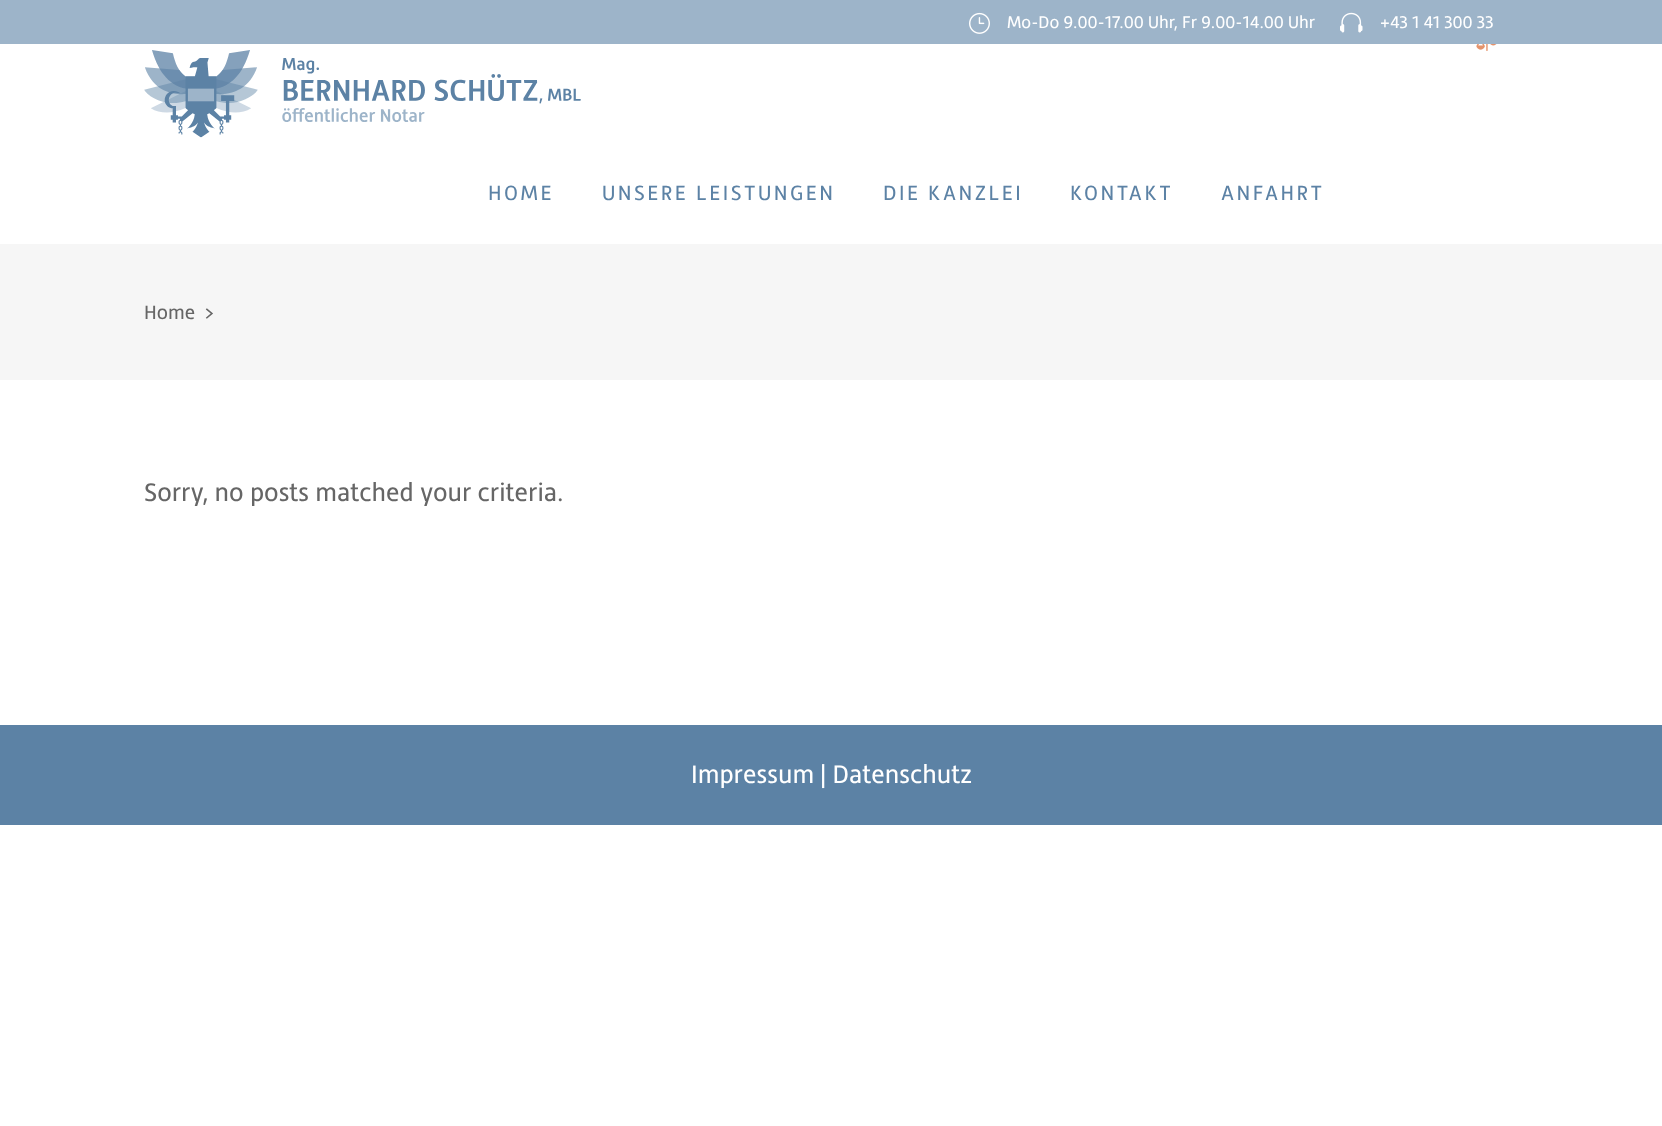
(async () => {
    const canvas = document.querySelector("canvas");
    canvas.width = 1662;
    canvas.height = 1126;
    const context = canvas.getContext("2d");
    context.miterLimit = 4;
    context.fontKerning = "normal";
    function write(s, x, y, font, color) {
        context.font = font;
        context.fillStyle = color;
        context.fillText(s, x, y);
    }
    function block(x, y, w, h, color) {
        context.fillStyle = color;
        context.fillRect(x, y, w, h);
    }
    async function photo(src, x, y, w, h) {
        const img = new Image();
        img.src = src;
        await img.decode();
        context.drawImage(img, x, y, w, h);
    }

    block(0, 0, 1662, 1126, "rgb(255, 255, 255)");
    block(0, 0, 1662, 44, "rgb(157, 180, 201)");
    await photo("media/1.png", 969, 12, 21, 22);
    write("Mo-Do 9.00-17.00 Uhr, Fr 9.00-14.00 Uhr", 1007, 28, "17.5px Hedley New", "rgb(255, 255, 255)");
    await photo("media/2.png", 1340, 12, 23, 21);
    write("+43 1 41 300 33", 1380, 28, "17.5px Hedley New", "rgb(255, 255, 255)");
    await photo("media/3.png", 1476, 44, 21, 7);
    await photo("media/4.png", 144, 50, 437, 88);
    context.letterSpacing = "2.5px";
    write("HOME", 488, 200, "21.25px Hedley New", "rgb(92, 130, 165)");
    write("UNSERE LEISTUNGEN", 602, 200, "21.25px Hedley New", "rgb(92, 130, 165)");
    write("DIE KANZLEI", 883, 200, "21.25px Hedley New", "rgb(92, 130, 165)");
    write("KONTAKT", 1070, 200, "21.25px Hedley New", "rgb(92, 130, 165)");
    write("ANFAHRT", 1221, 200, "21.25px Hedley New", "rgb(92, 130, 165)");
    block(0, 244, 1662, 136, "rgb(246, 246, 246)");
    context.letterSpacing = "0px";
    write("Home", 144, 319, "20px Hedley New", "rgb(102, 102, 102)");
    write(">", 204, 319, "20px Hedley New", "rgb(102, 102, 102)");
    write("Sorry, no posts matched your criteria.", 144, 501, "26px Hedley New", "rgb(102, 102, 102)");
    block(0, 725, 1662, 100, "rgb(92, 130, 165)");
    write("Impressum", 691, 783, "26px Hedley New", "rgb(255, 255, 255)");
    write("| Datenschutz", 820, 783, "26px Hedley New", "rgb(255, 255, 255)");
})();
